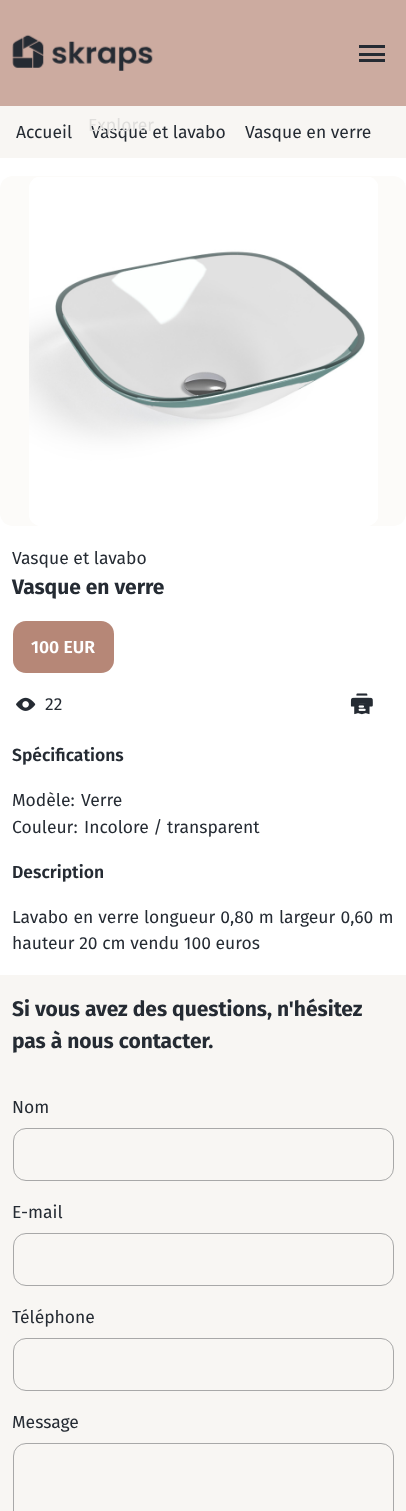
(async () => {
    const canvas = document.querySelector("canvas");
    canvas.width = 406;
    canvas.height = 1511;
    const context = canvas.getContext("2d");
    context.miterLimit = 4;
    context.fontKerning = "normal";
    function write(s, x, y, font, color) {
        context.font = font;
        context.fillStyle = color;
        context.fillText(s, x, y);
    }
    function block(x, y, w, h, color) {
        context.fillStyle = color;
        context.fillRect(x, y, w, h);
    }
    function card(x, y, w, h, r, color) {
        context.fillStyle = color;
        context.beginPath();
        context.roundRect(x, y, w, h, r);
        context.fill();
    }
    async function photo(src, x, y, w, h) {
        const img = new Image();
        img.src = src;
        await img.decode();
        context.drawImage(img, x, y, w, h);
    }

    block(0, 0, 406, 1511, "rgb(255, 255, 255)");
    block(0, 0, 406, 106, "rgb(204, 171, 160)");
    await photo("media/1.png", 12, 34, 141, 37);
    block(359, 45, 26, 3, "rgb(37, 43, 51)");
    block(359, 53, 26, 3, "rgb(37, 43, 51)");
    block(359, 59, 26, 3, "rgb(37, 43, 51)");
    block(0, 106, 406, 52, "rgb(248, 246, 243)");
    write("Vasque et lavabo", 91, 138, "17.5px Fira Sans", "rgb(37, 43, 51)");
    write("Explorer", 88, 131, "17.5px Fira Sans", "rgb(223, 222, 220)");
    write("Accueil", 16, 138, "17.5px Fira Sans", "rgb(37, 43, 51)");
    write("Vasque en verre", 245, 138, "17.5px Fira Sans", "rgb(37, 43, 51)");
    card(0, 176, 406, 350, 13, "rgb(252, 251, 249)");
    await photo("media/2.png", 29, 177, 349, 349);
    write("Vasque et lavabo", 12, 564, "17.5px Fira Sans", "rgb(37, 43, 51)");
    write("Vasque en verre", 12, 594, "bold 21px Fira Sans", "rgb(37, 43, 51)");
    card(13, 621, 101, 52, 13, "rgb(182, 135, 119)");
    write("100 EUR", 31, 653, "600 17.5px Fira Sans", "rgb(255, 255, 255)");
    await photo("media/3.png", 16, 697, 20, 14);
    write("22", 45, 710, "17.5px Fira Sans", "rgb(37, 43, 51)");
    await photo("media/4.png", 350, 693, 23, 22);
    write("Spécifications", 12, 761, "600 17.5px Fira Sans", "rgb(37, 43, 51)");
    write("Modèle:", 12, 806, "17.5px Fira Sans", "rgb(37, 43, 51)");
    write("Verre", 81, 806, "17.5px Fira Sans", "rgb(37, 43, 51)");
    write("Couleur:", 12, 833, "17.5px Fira Sans", "rgb(37, 43, 51)");
    write("Incolore / transparent", 84, 833, "17.5px Fira Sans", "rgb(37, 43, 51)");
    write("Description", 12, 878, "600 17.5px Fira Sans", "rgb(37, 43, 51)");
    context.wordSpacing = "0.5px";
    write("Lavabo en verre longueur 0,80 m largeur 0,60 m", 12, 923, "17.5px Fira Sans", "rgb(37, 43, 51)");
    context.wordSpacing = "0px";
    write("hauteur 20 cm vendu 100 euros", 12, 949, "17.5px Fira Sans", "rgb(37, 43, 51)");
    block(0, 975, 406, 536, "rgb(248, 246, 243)");
    write("Si vous avez des questions, n'hésitez", 12, 1016, "bold 21px Fira Sans", "rgb(37, 43, 51)");
    write("pas à nous contacter.", 12, 1048, "bold 21px Fira Sans", "rgb(37, 43, 51)");
    write("Nom", 12, 1113, "17.5px Fira Sans", "rgb(37, 43, 51)");
    context.beginPath();
    context.roundRect(13.5, 1128.5, 380, 52, 12.5);
    context.strokeStyle = "rgb(168, 168, 168)";
    context.stroke();
    write("E-mail", 12, 1218, "17.5px Fira Sans", "rgb(37, 43, 51)");
    context.beginPath();
    context.roundRect(13.5, 1233.5, 380, 52, 12.5);
    context.stroke();
    write("Téléphone", 12, 1323, "17.5px Fira Sans", "rgb(37, 43, 51)");
    context.beginPath();
    context.roundRect(13.5, 1338.5, 380, 52, 12.5);
    context.stroke();
    write("Message", 12, 1428, "17.5px Fira Sans", "rgb(37, 43, 51)");
    context.beginPath();
    context.roundRect(13.5, 1443.5, 380, 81, 12.5);
    context.stroke();
})();
